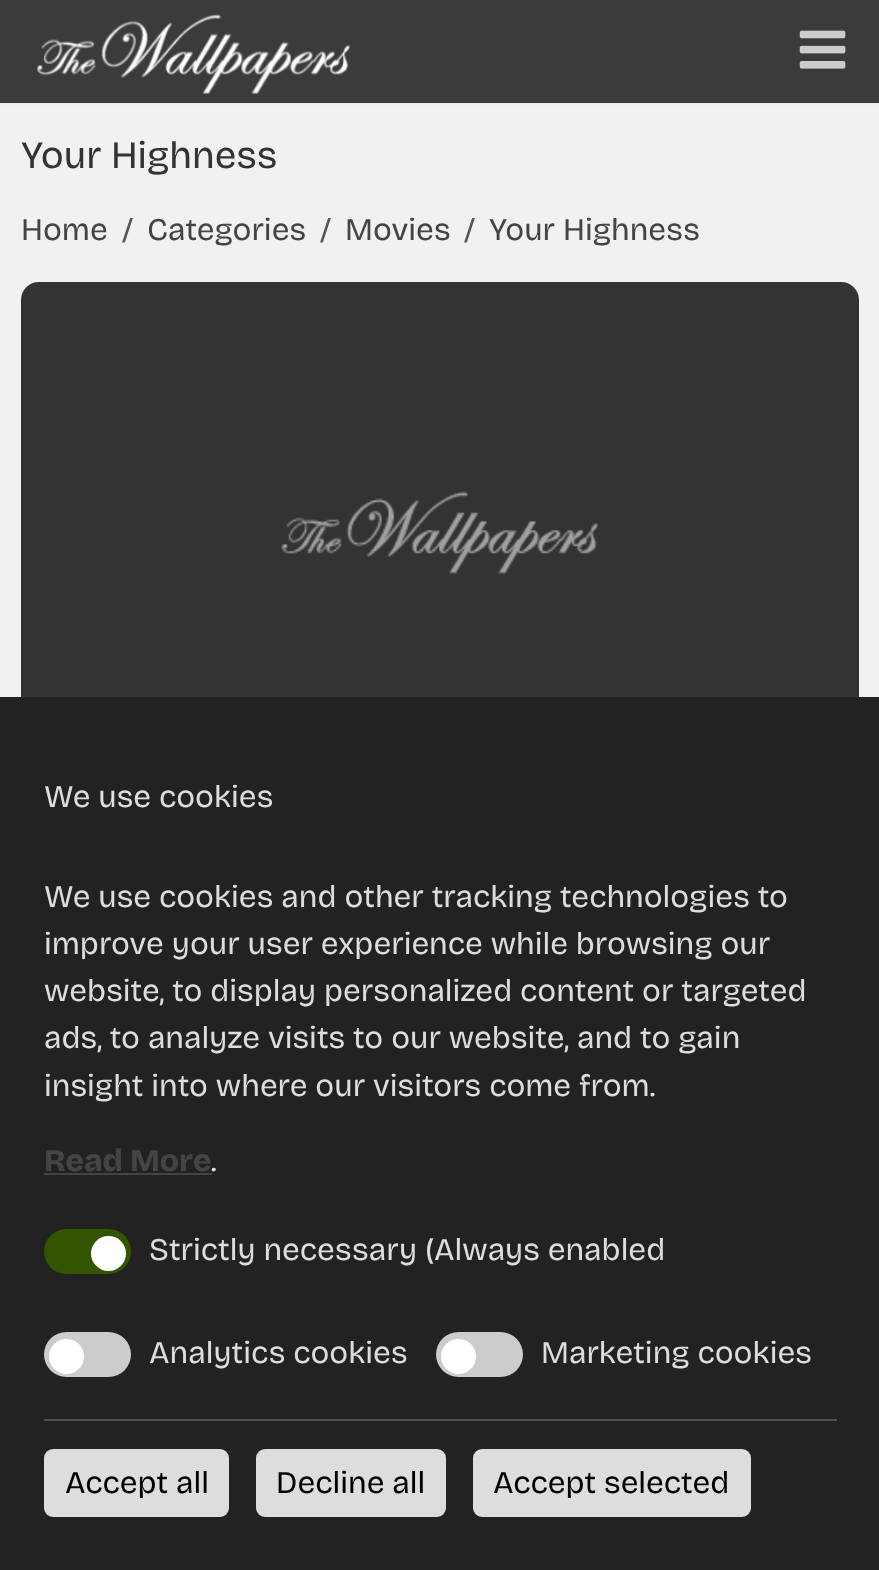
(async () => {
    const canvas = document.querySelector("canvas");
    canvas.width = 879;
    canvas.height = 1570;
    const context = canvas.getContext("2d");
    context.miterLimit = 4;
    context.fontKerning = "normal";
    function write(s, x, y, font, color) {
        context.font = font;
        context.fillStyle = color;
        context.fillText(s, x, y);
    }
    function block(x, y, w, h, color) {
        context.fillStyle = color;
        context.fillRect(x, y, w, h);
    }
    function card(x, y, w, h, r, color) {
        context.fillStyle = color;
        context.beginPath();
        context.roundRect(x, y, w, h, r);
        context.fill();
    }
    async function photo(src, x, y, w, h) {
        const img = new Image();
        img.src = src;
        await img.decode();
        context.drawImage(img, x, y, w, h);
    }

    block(0, 0, 879, 1570, "rgb(241, 241, 241)");
    block(0, 0, 879, 103, "rgb(59, 59, 59)");
    block(0, 103, 879, 2, "rgb(238, 238, 238)");
    await photo("media/1.png", 37, 14, 314, 80);
    await photo("media/2.png", 799, 30, 47, 39);
    write("Your Highness", 21, 168, "38.5px Bricolage Grotesque", "rgb(51, 51, 51)");
    write("Home", 21, 240, "31.5px 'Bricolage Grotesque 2'", "rgb(68, 68, 68)");
    write("/", 122, 240, "31.5px 'Bricolage Grotesque 2'", "rgb(85, 88, 91)");
    write("Categories", 147, 240, "31.5px 'Bricolage Grotesque 2'", "rgb(68, 68, 68)");
    write("/", 320, 240, "31.5px 'Bricolage Grotesque 2'", "rgb(85, 88, 91)");
    write("Movies", 345, 240, "31.5px 'Bricolage Grotesque 2'", "rgb(68, 68, 68)");
    write("/", 464, 240, "31.5px 'Bricolage Grotesque 2'", "rgb(85, 88, 91)");
    write("Your Highness", 489, 240, "31.5px 'Bricolage Grotesque 2'", "rgb(68, 68, 68)");
    card(21, 282, 838, 499, 18, "rgb(51, 51, 51)");
    await photo("media/3.png", 281, 491, 318, 83);
    block(0, 697, 879, 873, "rgb(34, 34, 34)");
    write("We use cookies", 44, 807, "31.5px 'Bricolage Grotesque 2'", "rgb(221, 221, 221)");
    write("We use cookies and other tracking technologies to", 44, 907, "31.5px 'Bricolage Grotesque 2'", "rgb(221, 221, 221)");
    write("improve your user experience while browsing our", 44, 954, "31.5px 'Bricolage Grotesque 2'", "rgb(221, 221, 221)");
    write("website, to display personalized content or targeted", 44, 1001, "31.5px 'Bricolage Grotesque 2'", "rgb(221, 221, 221)");
    write("ads, to analyze visits to our website, and to gain", 44, 1048, "31.5px 'Bricolage Grotesque 2'", "rgb(221, 221, 221)");
    write("insight into where our visitors come from.", 44, 1096, "31.5px 'Bricolage Grotesque 2'", "rgb(221, 221, 221)");
    write("Read More", 44, 1171, "800 31.5px Bricolage Grotesque", "rgb(68, 68, 68)");
    block(44, 1173, 168, 2, "rgb(68, 68, 68)");
    write(".", 211, 1171, "31.5px 'Bricolage Grotesque 2'", "rgb(221, 221, 221)");
    card(44, 1229, 87, 45, 22.5, "rgb(51, 85, 0)");
    context.fillStyle = "rgb(255, 255, 255)";
    context.beginPath();
    context.arc(108.5, 1253.5, 17.5, 0, Math.PI * 2);
    context.fill();
    write("Strictly necessary (Always enabled", 149, 1260, "31.5px 'Bricolage Grotesque 2'", "rgb(221, 221, 221)");
    card(44, 1332, 87, 45, 22.5, "rgb(204, 204, 204)");
    context.fillStyle = "rgb(255, 255, 255)";
    context.beginPath();
    context.arc(66.5, 1356.5, 17.5, 0, Math.PI * 2);
    context.fill();
    write("Analytics cookies", 149, 1363, "31.5px 'Bricolage Grotesque 2'", "rgb(221, 221, 221)");
    card(436, 1332, 87, 45, 22.5, "rgb(204, 204, 204)");
    context.fillStyle = "rgb(255, 255, 255)";
    context.beginPath();
    context.arc(458.5, 1356.5, 17.5, 0, Math.PI * 2);
    context.fill();
    write("Marketing cookies", 541, 1363, "31.5px 'Bricolage Grotesque 2'", "rgb(221, 221, 221)");
    block(44, 1419, 793, 2, "rgb(81, 81, 81)");
    card(44, 1449, 185, 68, 9, "rgb(221, 221, 221)");
    write("Accept all", 65, 1493, "31.5px 'Bricolage Grotesque 2'", "rgb(0, 0, 0)");
    card(256, 1449, 190, 68, 9, "rgb(221, 221, 221)");
    write("Decline all", 276, 1493, "31.5px 'Bricolage Grotesque 2'", "rgb(0, 0, 0)");
    card(473, 1449, 278, 68, 9, "rgb(221, 221, 221)");
    write("Accept selected", 493, 1493, "31.5px 'Bricolage Grotesque 2'", "rgb(0, 0, 0)");
})();
